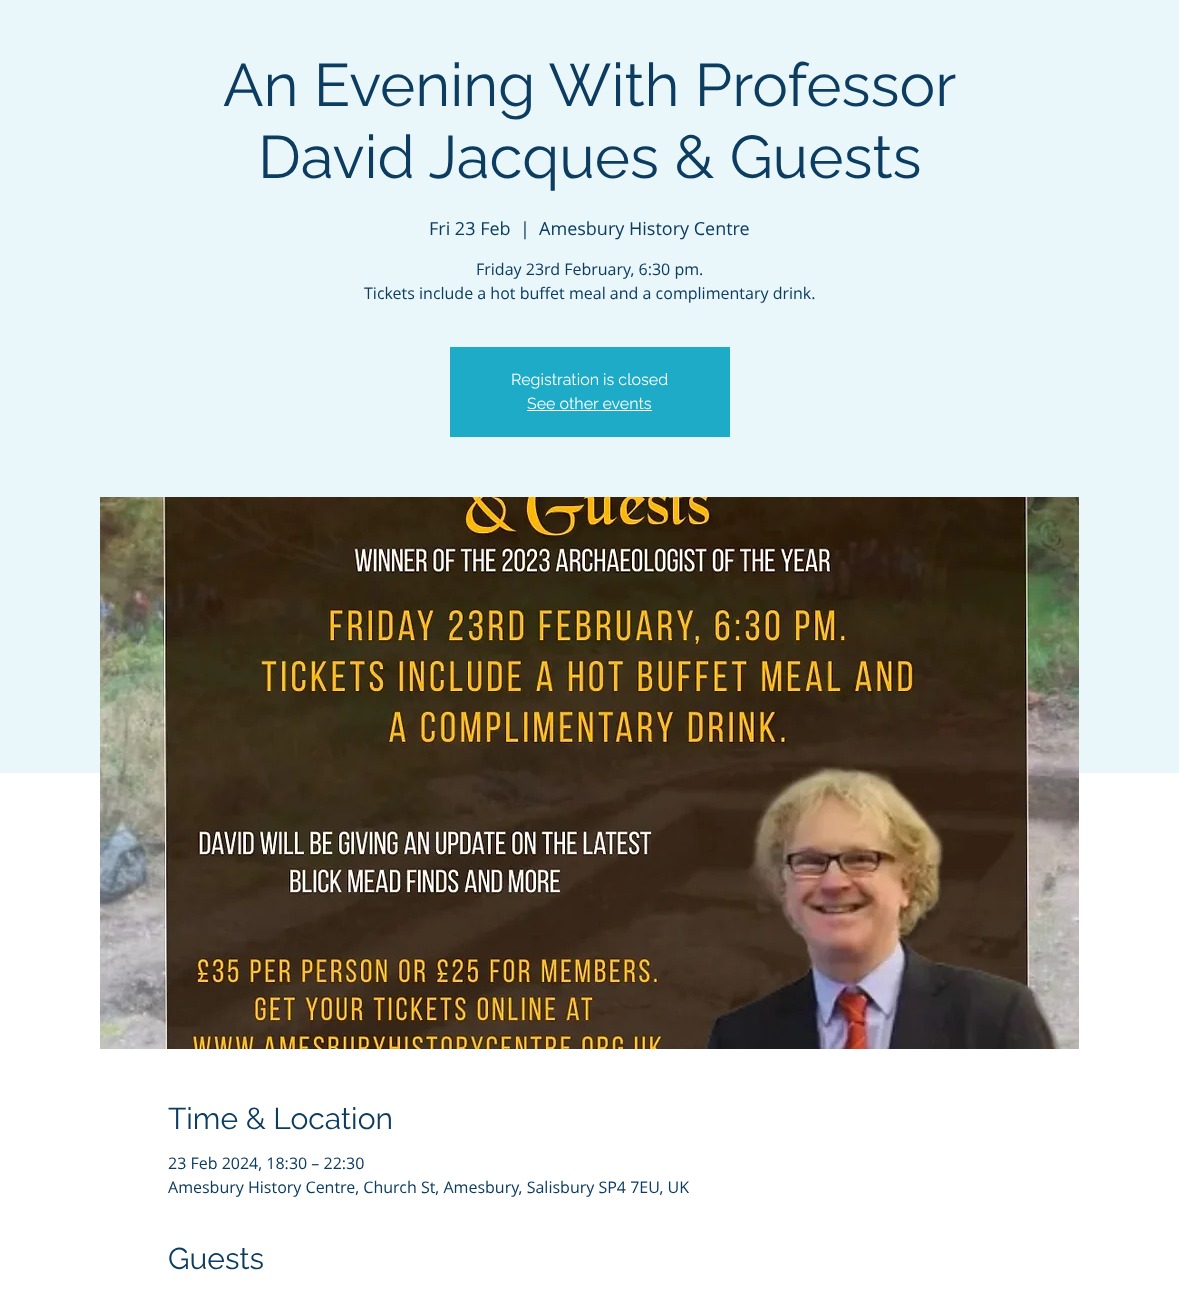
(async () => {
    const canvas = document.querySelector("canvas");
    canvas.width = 1179;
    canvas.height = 1292;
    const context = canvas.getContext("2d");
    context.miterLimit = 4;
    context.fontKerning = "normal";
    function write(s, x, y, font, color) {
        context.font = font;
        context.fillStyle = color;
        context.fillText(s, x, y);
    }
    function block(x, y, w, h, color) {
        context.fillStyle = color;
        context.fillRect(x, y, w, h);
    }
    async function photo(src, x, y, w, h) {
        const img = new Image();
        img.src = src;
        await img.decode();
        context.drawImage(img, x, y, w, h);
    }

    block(0, 0, 1179, 1292, "rgb(255, 255, 255)");
    block(0, 0, 1179, 773, "rgb(233, 247, 250)");
    write("An Evening With Professor", 223, 106, "60px Raleway", "rgb(12, 60, 96)");
    write("David Jacques & Guests", 258, 178, "60px Raleway", "rgb(12, 60, 96)");
    write("Fri 23 Feb", 429, 235, "18px Open Sans", "rgb(12, 60, 96)");
    write("|", 520, 235, "18px Open Sans", "rgb(12, 60, 96)");
    write("Amesbury History Centre", 539, 235, "18px Open Sans", "rgb(12, 60, 96)");
    write("Friday 23rd February, 6:30 pm.", 476, 275, "16px Open Sans", "rgb(12, 60, 96)");
    write("Tickets include a hot buffet meal and a complimentary drink.", 364, 299, "16px Open Sans", "rgb(12, 60, 96)");
    block(450, 347, 280, 90, "rgb(30, 171, 199)");
    write("Registration is closed", 511, 385, "16px Raleway", "rgb(255, 255, 255)");
    write("See other events", 527, 409, "16px Raleway", "rgb(255, 255, 255)");
    block(527, 410, 125, 1, "rgb(255, 255, 255)");
    await photo("media/1.png", 100, 497, 979, 552);
    write("Time & Location", 168, 1129, "30px Raleway", "rgb(12, 60, 96)");
    write("23 Feb 2024, 18:30 – 22:30", 168, 1169, "16px Open Sans", "rgb(12, 60, 96)");
    write("Amesbury History Centre, Church St, Amesbury, Salisbury SP4 7EU, UK", 168, 1193, "16px Open Sans", "rgb(12, 60, 96)");
    write("Guests", 168, 1269, "30px Raleway", "rgb(12, 60, 96)");
})();
